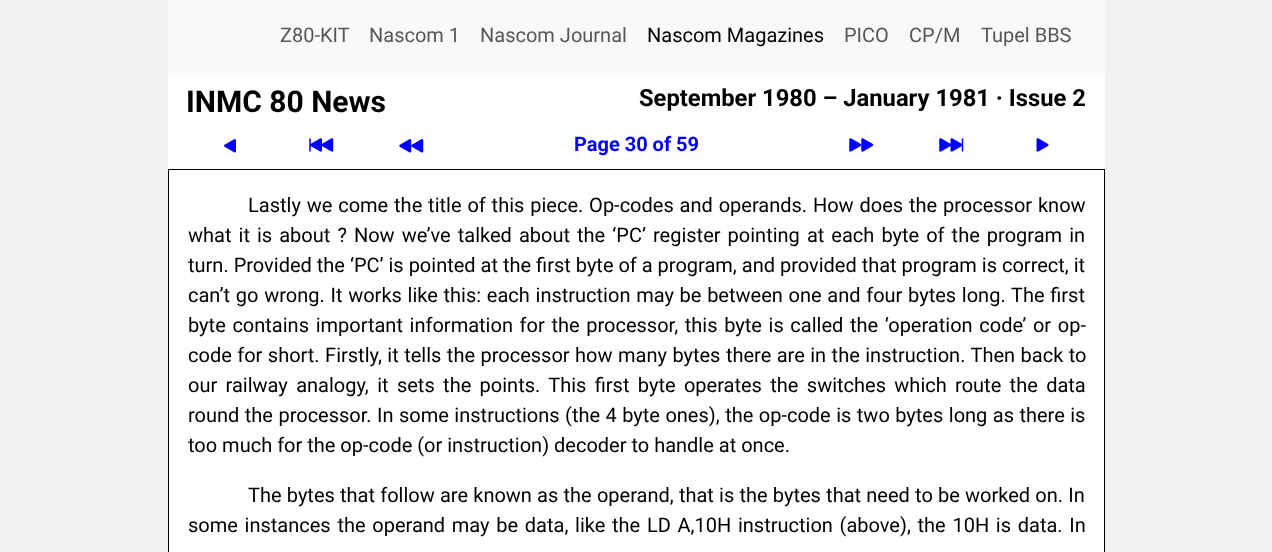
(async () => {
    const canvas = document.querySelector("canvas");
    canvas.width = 1272;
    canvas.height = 552;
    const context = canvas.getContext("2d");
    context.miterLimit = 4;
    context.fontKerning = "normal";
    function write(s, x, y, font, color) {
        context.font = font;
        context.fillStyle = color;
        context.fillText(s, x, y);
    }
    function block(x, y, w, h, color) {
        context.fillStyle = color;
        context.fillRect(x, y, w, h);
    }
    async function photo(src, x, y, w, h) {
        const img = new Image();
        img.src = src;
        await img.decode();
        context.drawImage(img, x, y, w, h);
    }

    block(0, 0, 1272, 552, "rgb(242, 242, 242)");
    block(168, 0, 937, 73, "rgb(248, 249, 250)");
    write("Z80-KIT", 280, 42, "20px Roboto", "rgb(87, 87, 88)");
    write("Nascom 1", 369, 42, "20px Roboto", "rgb(87, 87, 88)");
    write("Nascom Journal", 480, 42, "20px Roboto", "rgb(87, 87, 88)");
    write("Nascom Magazines", 647, 42, "20px Roboto", "rgb(0, 0, 0)");
    write("PICO", 844, 42, "20px Roboto", "rgb(87, 87, 88)");
    write("CP/M", 909, 42, "20px Roboto", "rgb(87, 87, 88)");
    write("Tupel BBS", 981, 42, "20px Roboto", "rgb(87, 87, 88)");
    block(168, 73, 937, 479, "rgb(255, 255, 255)");
    write("INMC 80 News", 186, 112, "bold 30px Roboto", "rgb(0, 0, 0)");
    write("September 1980 – January 1981 · Issue 2", 639, 106, "bold 23.75px Roboto", "rgb(0, 0, 0)");
    await photo("media/1.png", 224, 139, 12, 14);
    await photo("media/2.png", 309, 138, 25, 14);
    await photo("media/3.png", 399, 139, 25, 14);
    write("Page 30 of 59", 574, 151, "bold 20px Roboto", "rgb(0, 0, 255)");
    await photo("media/4.png", 849, 138, 25, 14);
    await photo("media/5.png", 939, 138, 25, 14);
    await photo("media/6.png", 1036, 138, 13, 14);
    context.strokeStyle = "rgb(0, 0, 0)";
    context.strokeRect(168.5, 169.5, 936, 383);
    context.wordSpacing = "0.9px";
    write("Lastly we come the title of this piece. Op-codes and operands. How does the processor know", 248, 212, "20px Roboto", "rgb(0, 0, 0)");
    context.wordSpacing = "2.1px";
    write("what it is about ? Now we’ve talked about the ‘PC’ register pointing at each byte of the program in", 188, 242, "20px Roboto", "rgb(0, 0, 0)");
    context.wordSpacing = "0px";
    write("turn. Provided the ‘PC’ is pointed at the first byte of a program, and provided that program is correct, it", 188, 272, "20px Roboto", "rgb(0, 0, 0)");
    context.wordSpacing = "0.75px";
    write("can’t go wrong. It works like this: each instruction may be between one and four bytes long. The first", 188, 302, "20px Roboto", "rgb(0, 0, 0)");
    context.wordSpacing = "1.7px";
    write("byte contains important information for the processor, this byte is called the ‘operation code’ or op-", 188, 332, "20px Roboto", "rgb(0, 0, 0)");
    context.wordSpacing = "0.5px";
    write("code for short. Firstly, it tells the processor how many bytes there are in the instruction. Then back to", 188, 362, "20px Roboto", "rgb(0, 0, 0)");
    context.wordSpacing = "3.4px";
    write("our railway analogy, it sets the points. This first byte operates the switches which route the data", 188, 392, "20px Roboto", "rgb(0, 0, 0)");
    context.wordSpacing = "0.5px";
    write("round the processor. In some instructions (the 4 byte ones), the op-code is two bytes long as there is", 188, 422, "20px Roboto", "rgb(0, 0, 0)");
    context.wordSpacing = "0px";
    write("too much for the op-code (or instruction) decoder to handle at once.", 188, 452, "20px Roboto", "rgb(0, 0, 0)");
    context.wordSpacing = "0.25px";
    write("The bytes that follow are known as the operand, that is the bytes that need to be worked on. In", 248, 502, "20px Roboto", "rgb(0, 0, 0)");
    context.wordSpacing = "1.75px";
    write("some instances the operand may be data, like the LD A,10H instruction (above), the 10H is data. In", 188, 532, "20px Roboto", "rgb(0, 0, 0)");
})();
